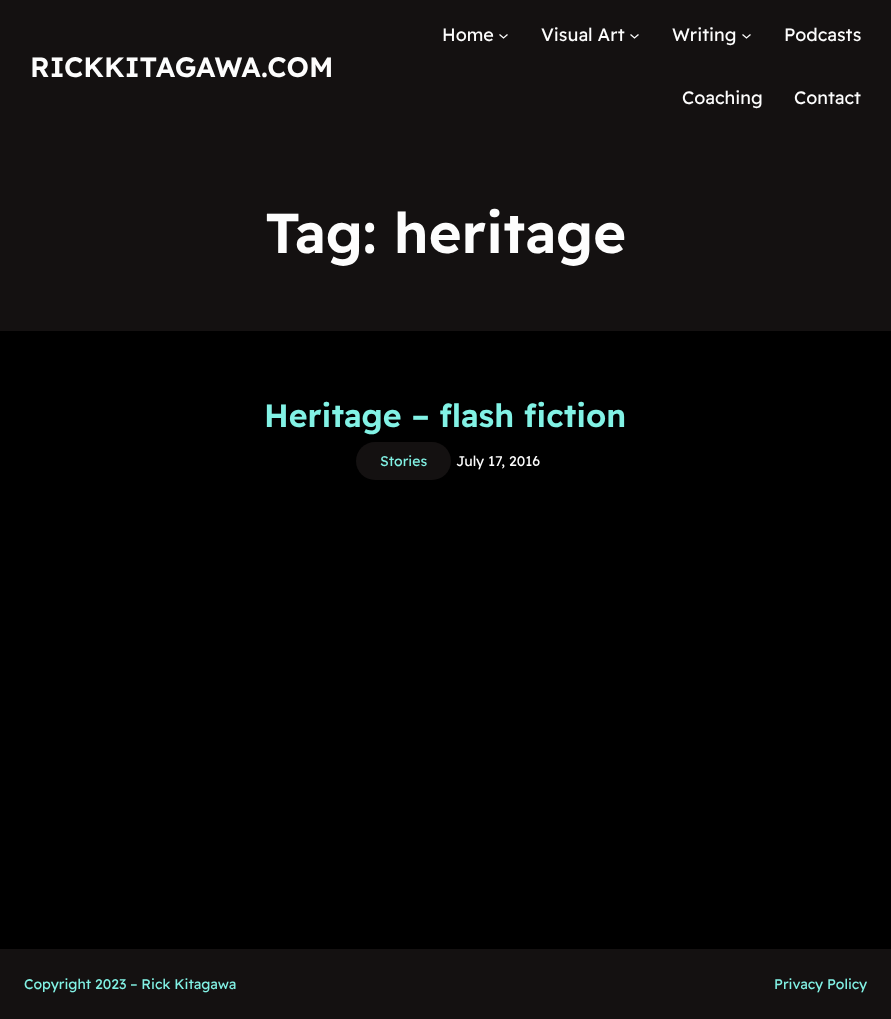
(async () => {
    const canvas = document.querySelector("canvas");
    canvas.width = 891;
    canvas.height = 1019;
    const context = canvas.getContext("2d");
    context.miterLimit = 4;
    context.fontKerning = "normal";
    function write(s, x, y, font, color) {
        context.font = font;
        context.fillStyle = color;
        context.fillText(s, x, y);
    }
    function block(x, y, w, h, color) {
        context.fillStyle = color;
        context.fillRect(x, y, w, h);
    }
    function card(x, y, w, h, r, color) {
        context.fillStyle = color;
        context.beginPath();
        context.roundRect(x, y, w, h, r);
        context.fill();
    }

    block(0, 0, 891, 1019, "rgb(0, 0, 0)");
    block(0, 0, 891, 331, "rgb(20, 17, 17)");
    write("RICKKITAGAWA.COM", 30, 77, "600 28px Readex Pro", "rgb(253, 253, 253)");
    write("Home", 442, 41, "18px Readex Pro", "rgb(253, 253, 253)");
    context.beginPath();
    context.moveTo(499.5, 34.5);
    context.lineTo(503.5, 38);
    context.lineTo(507.5, 34.5);
    context.strokeStyle = "rgb(253, 253, 253)";
    context.lineWidth = 1.3;
    context.stroke();
    write("Visual Art", 541, 41, "18px Readex Pro", "rgb(253, 253, 253)");
    context.beginPath();
    context.moveTo(630.5, 34.5);
    context.lineTo(634.5, 38);
    context.lineTo(638.5, 34.5);
    context.stroke();
    write("Writing", 672, 41, "18px Readex Pro", "rgb(253, 253, 253)");
    context.beginPath();
    context.moveTo(742.5, 34.5);
    context.lineTo(746.5, 38);
    context.lineTo(750.5, 34.5);
    context.stroke();
    write("Podcasts", 784, 41, "18px Readex Pro", "rgb(253, 253, 253)");
    write("Coaching", 682, 104, "18px Readex Pro", "rgb(253, 253, 253)");
    write("Contact", 794, 104, "18px Readex Pro", "rgb(253, 253, 253)");
    write("Tag: heritage", 265, 253, "600 56px Readex Pro", "rgb(253, 253, 253)");
    write("Heritage – flash fiction", 264, 427, "600 32px Readex Pro", "rgb(130, 242, 229)");
    card(356, 442, 95, 38, 19, "rgb(20, 17, 17)");
    write("Stories", 380, 466, "14px Readex Pro", "rgb(130, 242, 229)");
    write("July 17, 2016", 456, 466, "14px Readex Pro", "rgb(253, 253, 253)");
    block(0, 949, 891, 70, "rgb(20, 17, 17)");
    write("Copyright 2023 – Rick Kitagawa", 24, 989, "14px Readex Pro", "rgb(130, 242, 229)");
    write("Privacy Policy", 774, 989, "14px Readex Pro", "rgb(130, 242, 229)");
})();
